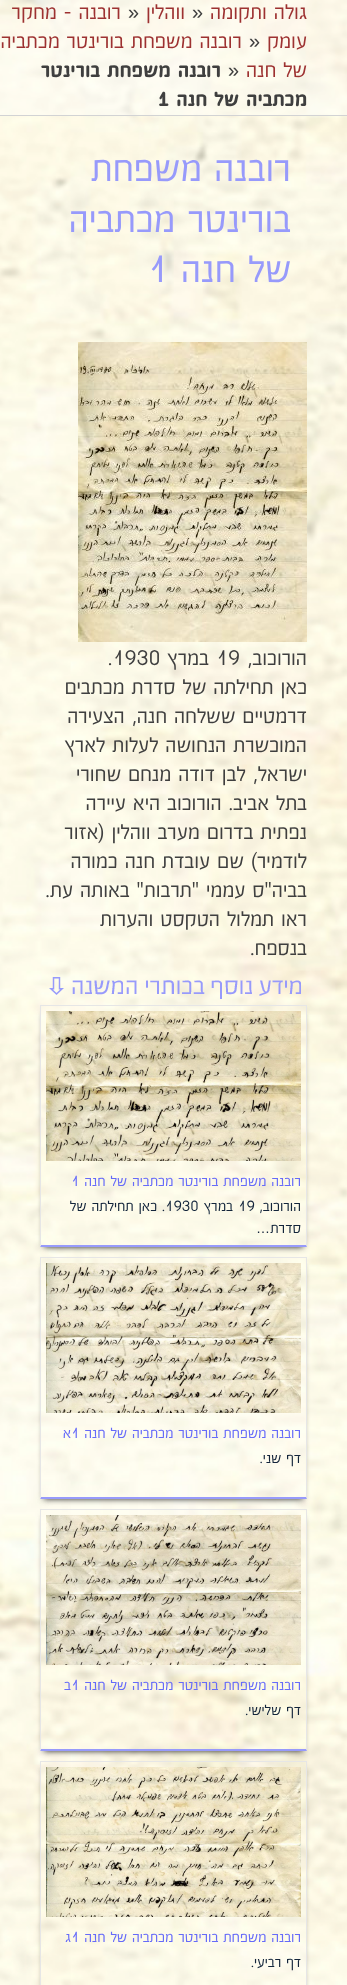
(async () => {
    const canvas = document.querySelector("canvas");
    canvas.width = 347;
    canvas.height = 1985;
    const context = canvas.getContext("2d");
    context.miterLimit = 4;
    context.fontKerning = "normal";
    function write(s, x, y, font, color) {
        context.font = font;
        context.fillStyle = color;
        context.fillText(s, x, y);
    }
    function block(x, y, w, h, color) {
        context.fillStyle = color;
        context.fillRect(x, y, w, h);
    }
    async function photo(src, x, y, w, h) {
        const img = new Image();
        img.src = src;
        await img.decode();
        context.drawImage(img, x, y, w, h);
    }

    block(0, 0, 347, 1985, "rgb(255, 255, 255)");
    await photo("media/1.png", 0, 0, 347, 1985);
    block(0, 0, 347, 115, "rgba(255, 255, 255, 0.4)");
    block(0, 115, 347, 1, "rgb(210, 211, 212)");
    context.direction = "rtl";
    write("גולה ותקומה", 307, 19, "20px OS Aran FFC", "rgb(157, 49, 49)");
    context.direction = "ltr";
    write("»", 192, 19, "20px Liberation Sans", "rgb(63, 63, 63)");
    context.direction = "rtl";
    write("ווהלין", 185, 19, "20px OS Aran FFC", "rgb(157, 49, 49)");
    context.direction = "ltr";
    write("»", 128, 19, "20px Liberation Sans", "rgb(63, 63, 63)");
    context.direction = "rtl";
    write("רובנה - מחקר", 121, 19, "20px OS Aran FFC", "rgb(157, 49, 49)");
    write("עומק", 307, 48, "20px OS Aran FFC", "rgb(157, 49, 49)");
    context.direction = "ltr";
    write("»", 249, 48, "20px Liberation Sans", "rgb(63, 63, 63)");
    context.direction = "rtl";
    write("רובנה משפחת בורינטר מכתביה", 242, 48, "20px OS Aran FFC", "rgb(157, 49, 49)");
    write("של חנה", 307, 77, "20px OS Aran FFC", "rgb(157, 49, 49)");
    context.direction = "ltr";
    write("»", 228, 77, "20px Liberation Sans", "rgb(63, 63, 63)");
    context.direction = "rtl";
    write("רובנה משפחת בורינטר", 221, 77, "20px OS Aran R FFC", "rgb(63, 63, 63)");
    write("מכתביה של חנה", 307, 106, "20px OS Aran R FFC", "rgb(63, 63, 63)");
    context.direction = "ltr";
    write("1", 158, 106, "20px OS Aran R FFC", "rgb(63, 63, 63)");
    context.direction = "rtl";
    write("רובנה משפחת", 291, 181, "36px OS Aran FFC", "rgb(151, 154, 251)");
    write("בורינטר מכתביה", 291, 232, "36px OS Aran FFC", "rgb(151, 154, 251)");
    write("של חנה", 291, 282, "36px OS Aran FFC", "rgb(151, 154, 251)");
    context.direction = "ltr";
    write("1", 147, 282, "36px OS Aran FFC", "rgb(151, 154, 251)");
    await photo("media/2.png", 78, 342, 229, 300);
    context.direction = "rtl";
    write("הורוכוב,", 307, 665, "20px OS Aran FFC", "rgb(63, 63, 63)");
    context.direction = "ltr";
    write("19", 216, 665, "20px OS Aran FFC", "rgb(63, 63, 63)");
    context.direction = "rtl";
    write("במרץ", 209, 665, "20px OS Aran FFC", "rgb(63, 63, 63)");
    context.direction = "ltr";
    write(".1930", 108, 665, "20px OS Aran FFC", "rgb(63, 63, 63)");
    context.direction = "rtl";
    write("כאן תחילתה של סדרת מכתבים", 307, 694, "20px OS Aran FFC", "rgb(63, 63, 63)");
    write("דרמטיים ששלחה חנה, הצעירה", 307, 723, "20px OS Aran FFC", "rgb(63, 63, 63)");
    write("המוכשרת הנחושה לעלות לארץ", 307, 752, "20px OS Aran FFC", "rgb(63, 63, 63)");
    write("ישראל, לבן דודה מנחם שחורי", 307, 781, "20px OS Aran FFC", "rgb(63, 63, 63)");
    write("בתל אביב. הורוכוב היא עיירה", 307, 810, "20px OS Aran FFC", "rgb(63, 63, 63)");
    write("נפתית בדרום מערב ווהלין (אזור", 307, 839, "20px OS Aran FFC", "rgb(63, 63, 63)");
    write("לודמיר) שם עובדת חנה כמורה", 307, 868, "20px OS Aran FFC", "rgb(63, 63, 63)");
    write("בביה\"ס עממי \"תרבות\" באותה עת.", 307, 897, "20px OS Aran FFC", "rgb(63, 63, 63)");
    write("ראו תמלול הטקסט והערות", 307, 926, "20px OS Aran FFC", "rgb(63, 63, 63)");
    write("בנספח.", 307, 955, "20px OS Aran FFC", "rgb(63, 63, 63)");
    await photo("media/3.png", 49, 977, 252, 22);
    context.save();
    context.beginPath();
    context.moveTo(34, 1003);
    context.lineTo(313, 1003);
    context.lineTo(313, 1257);
    context.lineTo(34, 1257);
    context.closePath();
    context.moveTo(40, 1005);
    context.lineTo(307, 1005);
    context.lineTo(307, 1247);
    context.lineTo(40, 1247);
    context.closePath();
    context.clip("evenodd");
    context.fillStyle = "rgb(34, 34, 34)";
    context.filter = "blur(3px)";
    context.beginPath();
    context.rect(44, 1013, 259, 234);
    context.fill();
    context.filter = "none";
    context.restore();
    block(40, 1005, 267, 1, "rgb(230, 230, 230)");
    context.beginPath();
    context.moveTo(307, 1005);
    context.lineTo(307, 1247);
    context.lineTo(306, 1245);
    context.lineTo(306, 1006);
    context.closePath();
    context.fill();
    context.fillStyle = "rgb(151, 154, 251)";
    context.beginPath();
    context.moveTo(307, 1247);
    context.lineTo(40, 1247);
    context.lineTo(41, 1245);
    context.lineTo(306, 1245);
    context.closePath();
    context.fill();
    context.fillStyle = "rgb(230, 230, 230)";
    context.beginPath();
    context.moveTo(40, 1247);
    context.lineTo(40, 1005);
    context.lineTo(41, 1006);
    context.lineTo(41, 1245);
    context.closePath();
    context.fill();
    await photo("media/4.png", 46, 1011, 255, 150);
    write("רובנה משפחת בורינטר מכתביה של חנה", 301, 1186, "14px OS Aran FFC", "rgb(102, 107, 249)");
    context.direction = "ltr";
    write("1", 71, 1186, "14px OS Aran FFC", "rgb(102, 107, 249)");
    context.direction = "rtl";
    write("הורוכוב,", 301, 1211, "14px OS Aran FFC", "rgb(19, 37, 59)");
    context.direction = "ltr";
    write("19", 238, 1211, "14px OS Aran FFC", "rgb(19, 37, 59)");
    context.direction = "rtl";
    write("במרץ", 233, 1211, "14px OS Aran FFC", "rgb(19, 37, 59)");
    context.direction = "ltr";
    write("1930", 165, 1211, "14px OS Aran FFC", "rgb(19, 37, 59)");
    context.direction = "rtl";
    write(". כאן תחילתה של", 165, 1211, "14px OS Aran FFC", "rgb(19, 37, 59)");
    write("סדרת", 301, 1233, "14px OS Aran FFC", "rgb(19, 37, 59)");
    write("…", 270, 1233, "14px Liberation Sans", "rgb(19, 37, 59)");
    context.save();
    context.beginPath();
    context.moveTo(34, 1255);
    context.lineTo(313, 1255);
    context.lineTo(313, 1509);
    context.lineTo(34, 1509);
    context.closePath();
    context.moveTo(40, 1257);
    context.lineTo(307, 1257);
    context.lineTo(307, 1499);
    context.lineTo(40, 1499);
    context.closePath();
    context.clip("evenodd");
    context.fillStyle = "rgb(34, 34, 34)";
    context.filter = "blur(3px)";
    context.beginPath();
    context.rect(44, 1265, 259, 234);
    context.fill();
    context.filter = "none";
    context.restore();
    block(40, 1257, 267, 1, "rgb(230, 230, 230)");
    context.beginPath();
    context.moveTo(307, 1257);
    context.lineTo(307, 1499);
    context.lineTo(306, 1497);
    context.lineTo(306, 1258);
    context.closePath();
    context.fill();
    context.fillStyle = "rgb(151, 154, 251)";
    context.beginPath();
    context.moveTo(307, 1499);
    context.lineTo(40, 1499);
    context.lineTo(41, 1497);
    context.lineTo(306, 1497);
    context.closePath();
    context.fill();
    context.fillStyle = "rgb(230, 230, 230)";
    context.beginPath();
    context.moveTo(40, 1499);
    context.lineTo(40, 1257);
    context.lineTo(41, 1258);
    context.lineTo(41, 1497);
    context.closePath();
    context.fill();
    await photo("media/5.png", 46, 1263, 255, 150);
    write("רובנה משפחת בורינטר מכתביה של חנה", 301, 1438, "14px OS Aran FFC", "rgb(102, 107, 249)");
    context.direction = "ltr";
    write("1", 71, 1438, "14px OS Aran FFC", "rgb(102, 107, 249)");
    context.direction = "rtl";
    write("א", 71, 1438, "14px OS Aran FFC", "rgb(102, 107, 249)");
    write("דף שני.", 301, 1463, "14px OS Aran FFC", "rgb(19, 37, 59)");
    context.save();
    context.beginPath();
    context.moveTo(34, 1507);
    context.lineTo(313, 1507);
    context.lineTo(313, 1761);
    context.lineTo(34, 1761);
    context.closePath();
    context.moveTo(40, 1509);
    context.lineTo(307, 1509);
    context.lineTo(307, 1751);
    context.lineTo(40, 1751);
    context.closePath();
    context.clip("evenodd");
    context.fillStyle = "rgb(34, 34, 34)";
    context.filter = "blur(3px)";
    context.beginPath();
    context.rect(44, 1517, 259, 234);
    context.fill();
    context.filter = "none";
    context.restore();
    block(40, 1509, 267, 1, "rgb(230, 230, 230)");
    context.beginPath();
    context.moveTo(307, 1509);
    context.lineTo(307, 1751);
    context.lineTo(306, 1749);
    context.lineTo(306, 1510);
    context.closePath();
    context.fill();
    context.fillStyle = "rgb(151, 154, 251)";
    context.beginPath();
    context.moveTo(307, 1751);
    context.lineTo(40, 1751);
    context.lineTo(41, 1749);
    context.lineTo(306, 1749);
    context.closePath();
    context.fill();
    context.fillStyle = "rgb(230, 230, 230)";
    context.beginPath();
    context.moveTo(40, 1751);
    context.lineTo(40, 1509);
    context.lineTo(41, 1510);
    context.lineTo(41, 1749);
    context.closePath();
    context.fill();
    await photo("media/6.png", 46, 1515, 255, 150);
    write("רובנה משפחת בורינטר מכתביה של חנה", 301, 1690, "14px OS Aran FFC", "rgb(102, 107, 249)");
    context.direction = "ltr";
    write("1", 71, 1690, "14px OS Aran FFC", "rgb(102, 107, 249)");
    context.direction = "rtl";
    write("ב", 71, 1690, "14px OS Aran FFC", "rgb(102, 107, 249)");
    write("דף שלישי.", 301, 1715, "14px OS Aran FFC", "rgb(19, 37, 59)");
    context.save();
    context.beginPath();
    context.moveTo(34, 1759);
    context.lineTo(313, 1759);
    context.lineTo(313, 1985);
    context.lineTo(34, 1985);
    context.closePath();
    context.moveTo(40, 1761);
    context.lineTo(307, 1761);
    context.lineTo(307, 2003);
    context.lineTo(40, 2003);
    context.closePath();
    context.clip("evenodd");
    context.fillStyle = "rgb(34, 34, 34)";
    context.filter = "blur(3px)";
    context.beginPath();
    context.rect(44, 1769, 259, 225);
    context.fill();
    context.filter = "none";
    context.restore();
    block(40, 1761, 267, 1, "rgb(230, 230, 230)");
    context.beginPath();
    context.moveTo(307, 1761);
    context.lineTo(307, 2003);
    context.lineTo(306, 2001);
    context.lineTo(306, 1762);
    context.closePath();
    context.fill();
    context.beginPath();
    context.moveTo(40, 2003);
    context.lineTo(40, 1761);
    context.lineTo(41, 1762);
    context.lineTo(41, 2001);
    context.closePath();
    context.fill();
    await photo("media/7.png", 46, 1767, 255, 150);
    write("רובנה משפחת בורינטר מכתביה של חנה", 301, 1942, "14px OS Aran FFC", "rgb(102, 107, 249)");
    context.direction = "ltr";
    write("1", 71, 1942, "14px OS Aran FFC", "rgb(102, 107, 249)");
    context.direction = "rtl";
    write("ג", 71, 1942, "14px OS Aran FFC", "rgb(102, 107, 249)");
    write("דף רביעי.", 301, 1967, "14px OS Aran FFC", "rgb(19, 37, 59)");
})();
